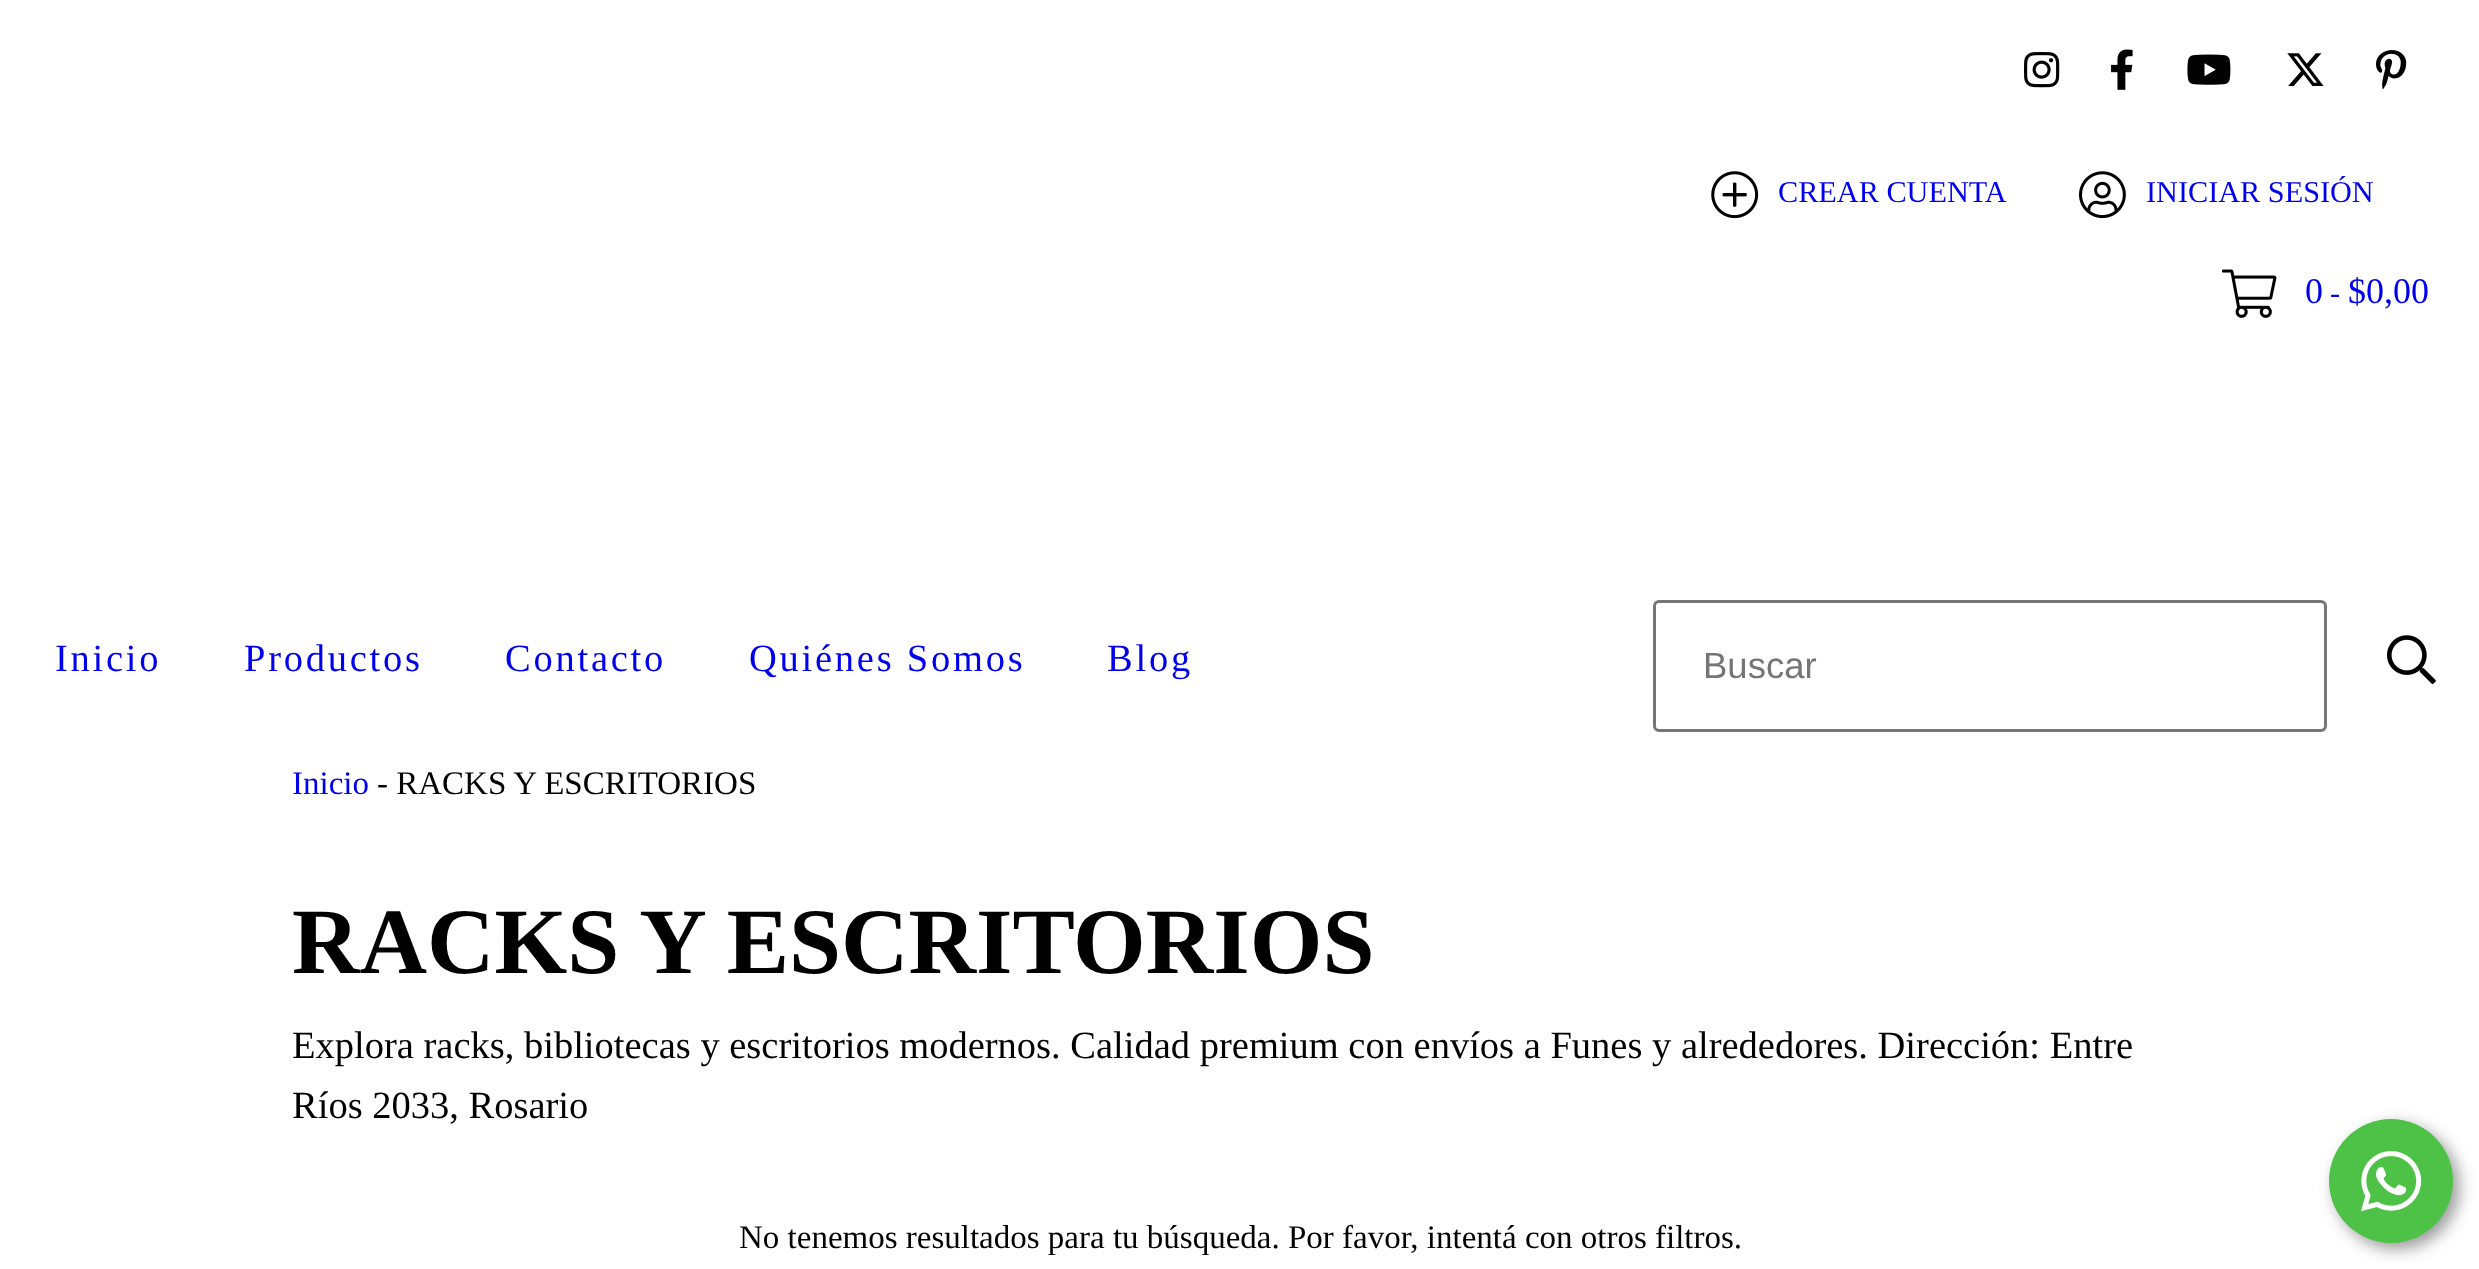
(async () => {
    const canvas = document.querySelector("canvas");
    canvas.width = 2479;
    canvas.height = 1269;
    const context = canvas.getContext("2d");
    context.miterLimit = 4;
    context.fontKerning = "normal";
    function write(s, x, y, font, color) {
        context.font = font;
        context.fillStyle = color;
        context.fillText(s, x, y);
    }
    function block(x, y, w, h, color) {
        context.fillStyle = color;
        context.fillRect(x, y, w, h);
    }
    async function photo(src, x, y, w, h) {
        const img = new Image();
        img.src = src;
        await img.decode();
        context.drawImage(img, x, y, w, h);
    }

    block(0, 0, 2479, 1269, "rgb(255, 255, 255)");
    await photo("media/1.png", 2024, 52, 36, 36);
    await photo("media/2.png", 2111, 49, 22, 41);
    await photo("media/3.png", 2187, 54, 44, 31);
    await photo("media/4.png", 2287, 53, 37, 33);
    await photo("media/5.png", 2376, 50, 31, 40);
    await photo("media/6.png", 1711, 171, 48, 48);
    write("CREAR CUENTA", 1778, 202, "30.25px Liberation Serif", "rgb(0, 0, 238)");
    await photo("media/7.png", 2079, 171, 47, 48);
    write("INICIAR SESIÓN", 2146, 202, "30.25px Liberation Serif", "rgb(0, 0, 238)");
    await photo("media/8.png", 2222, 269, 55, 49);
    write("0", 2305, 303, "36px Liberation Serif", "rgb(0, 0, 238)");
    write("-", 2330, 303, "30.25px Liberation Serif", "rgb(0, 0, 238)");
    write("$0,00", 2348, 303, "36px Liberation Serif", "rgb(0, 0, 238)");
    context.letterSpacing = "2.75px";
    write("Inicio", 55, 671, "38.5px Liberation Serif", "rgb(0, 0, 238)");
    write("Productos", 244, 671, "38.5px Liberation Serif", "rgb(0, 0, 238)");
    write("Contacto", 505, 671, "38.5px Liberation Serif", "rgb(0, 0, 238)");
    write("Quiénes Somos", 749, 671, "38.5px Liberation Serif", "rgb(0, 0, 238)");
    write("Blog", 1107, 671, "38.5px Liberation Serif", "rgb(0, 0, 238)");
    context.beginPath();
    context.roundRect(1654.5, 601.5, 671, 129, 4.5);
    context.strokeStyle = "rgb(118, 118, 118)";
    context.lineWidth = 3;
    context.stroke();
    context.letterSpacing = "0px";
    write("Buscar", 1703, 678, "36.5px Liberation Sans", "rgb(117, 117, 117)");
    await photo("media/9.png", 2387, 635, 49, 50);
    write("Inicio", 292, 794, "33px Liberation Serif", "rgb(0, 0, 238)");
    write("- RACKS Y ESCRITORIOS", 377, 794, "33px Liberation Serif", "rgb(0, 0, 0)");
    write("RACKS Y ESCRITORIOS", 292, 973, "bold 93.5px Liberation Serif", "rgb(0, 0, 0)");
    write("Explora racks, bibliotecas y escritorios modernos. Calidad premium con envíos a Funes y alrededores. Dirección: Entre", 292, 1058, "38.5px Liberation Serif", "rgb(0, 0, 0)");
    write("Ríos 2033, Rosario", 292, 1118, "38.5px Liberation Serif", "rgb(0, 0, 0)");
    write("No tenemos resultados para tu búsqueda. Por favor, intentá con otros filtros.", 739, 1248, "33px Liberation Serif", "rgb(0, 0, 0)");
    context.fillStyle = "rgba(0, 0, 0, 0.4)";
    context.filter = "blur(8px)";
    context.beginPath();
    context.roundRect(2335, 1125, 124, 124, 62);
    context.fill();
    context.filter = "none";
    context.fillStyle = "rgb(77, 194, 71)";
    context.beginPath();
    context.arc(2391, 1181, 62, 0, Math.PI * 2);
    context.fill();
    await photo("media/10.png", 2361, 1151, 61, 61);
})();
